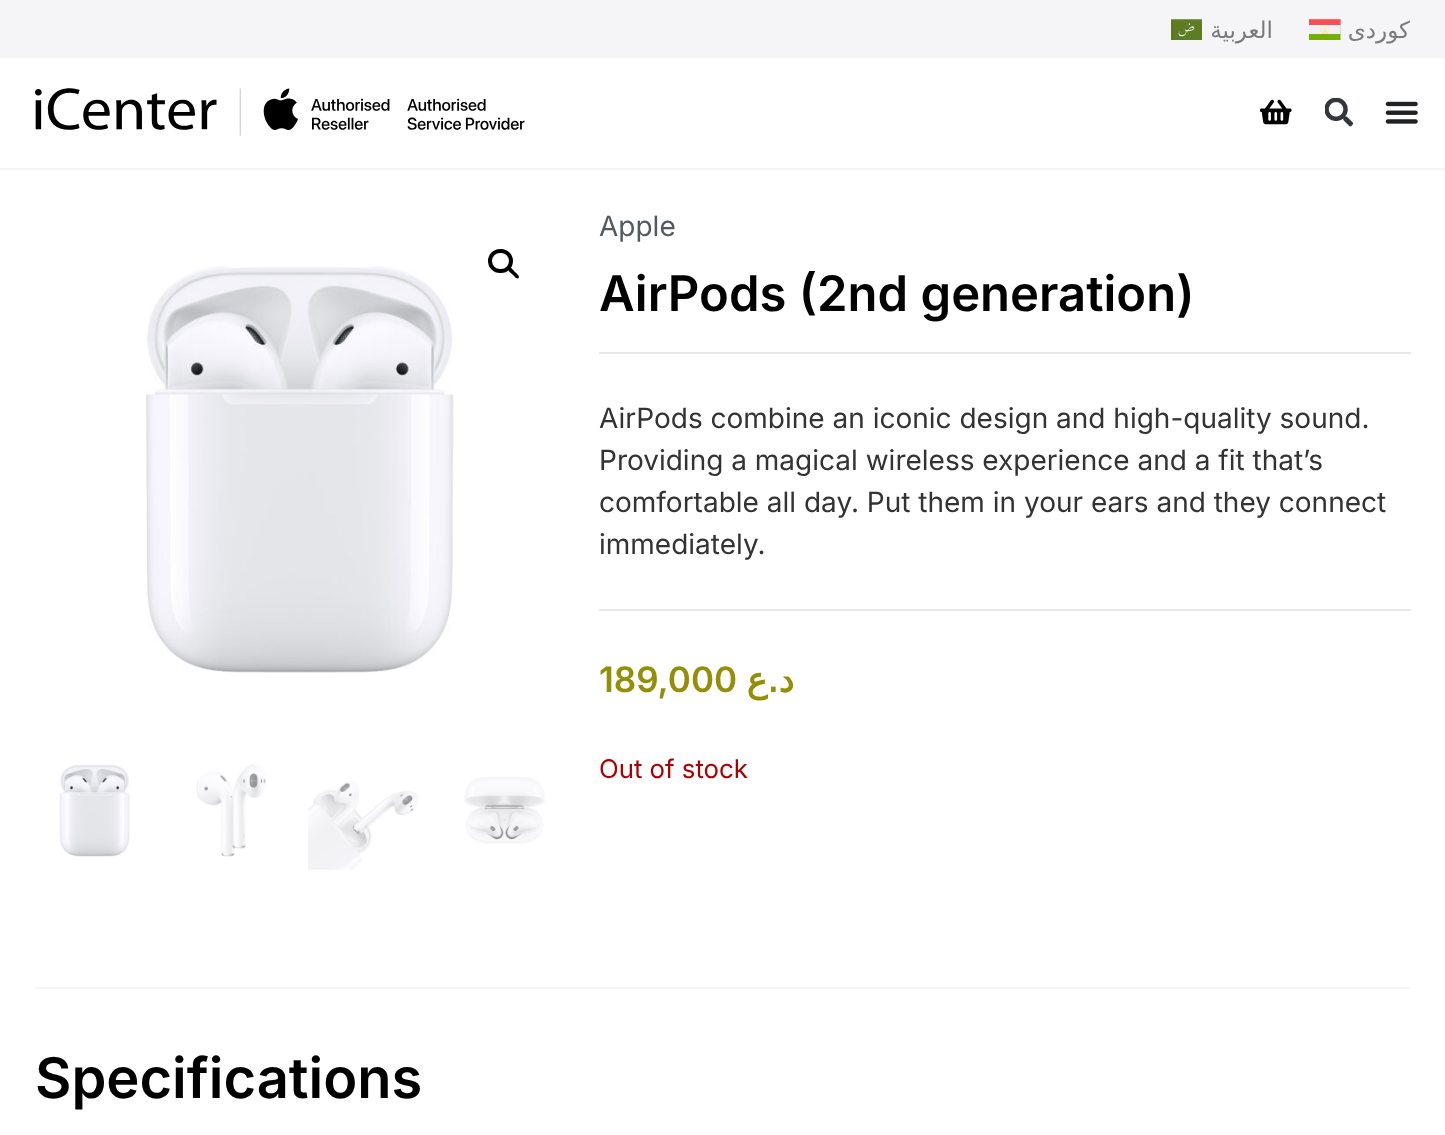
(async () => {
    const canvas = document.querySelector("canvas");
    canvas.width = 1445;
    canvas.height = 1135;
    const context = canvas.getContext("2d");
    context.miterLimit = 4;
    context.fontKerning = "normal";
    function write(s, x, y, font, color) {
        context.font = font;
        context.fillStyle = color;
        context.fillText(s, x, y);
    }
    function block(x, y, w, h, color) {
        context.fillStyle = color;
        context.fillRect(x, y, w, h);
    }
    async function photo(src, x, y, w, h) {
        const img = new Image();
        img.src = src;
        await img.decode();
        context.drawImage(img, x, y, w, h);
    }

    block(0, 0, 1445, 1135, "rgb(255, 255, 255)");
    block(0, 0, 1445, 58, "rgb(245, 245, 247)");
    await photo("media/1.png", 1171, 19, 31, 21);
    context.direction = "rtl";
    write("العربية", 1273, 38, "23px DejaVu Sans", "rgb(122, 122, 122)");
    await photo("media/2.png", 1309, 19, 32, 21);
    write("کوردی", 1410, 38, "23px DejaVu Sans", "rgb(122, 122, 122)");
    block(0, 168, 1445, 2, "rgb(245, 245, 247)");
    await photo("media/3.png", 35, 88, 490, 48);
    await photo("media/4.png", 1260, 99, 32, 26);
    await photo("media/5.png", 1325, 98, 28, 29);
    await photo("media/6.png", 1385, 101, 33, 23);
    await photo("media/7.png", 146, 266, 308, 407);
    context.beginPath();
    context.roundRect(490, 251, 21, 20, 10);
    context.strokeStyle = "rgb(0, 0, 0)";
    context.lineWidth = 4;
    context.stroke();
    context.fillStyle = "rgb(0, 0, 0)";
    context.beginPath();
    context.moveTo(508.5, 268);
    context.bezierCurveTo(510.5, 266, 513.5, 270.5, 514.5, 271.5);
    context.bezierCurveTo(515.5, 272.5, 520.5, 276, 518.5, 278);
    context.bezierCurveTo(516.5, 280, 513.5, 275, 512, 274);
    context.bezierCurveTo(511, 273, 506.5, 270, 508.5, 268);
    context.closePath();
    context.fill();
    await photo("media/8.png", 59, 764, 71, 93);
    await photo("media/9.png", 196, 764, 70, 93);
    await photo("media/10.png", 308, 781, 110, 89);
    await photo("media/11.png", 464, 777, 81, 67);
    context.direction = "ltr";
    write("Apple", 599, 236, "28px Inter", "rgb(84, 89, 95)");
    write("AirPods (2nd generation)", 599, 311, "600 49px Inter", "rgb(0, 0, 0)");
    block(599, 352, 812, 2, "rgb(231, 231, 231)");
    write("AirPods combine an iconic design and high-quality sound.", 599, 428, "28px Inter", "rgb(51, 51, 51)");
    write("Providing a magical wireless experience and a fit that’s", 599, 470, "28px Inter", "rgb(51, 51, 51)");
    write("comfortable all day. Put them in your ears and they connect", 599, 512, "28px Inter", "rgb(51, 51, 51)");
    write("immediately.", 599, 554, "28px Inter", "rgb(51, 51, 51)");
    block(599, 609, 812, 2, "rgb(231, 231, 231)");
    write("189,000", 599, 692, "600 35px Inter", "rgb(149, 142, 9)");
    context.direction = "rtl";
    write("د.ع", 794, 692, "bold 35px DejaVu Sans", "rgb(149, 142, 9)");
    context.direction = "ltr";
    write("Out of stock", 599, 778, "25.75px Inter", "rgb(170, 0, 0)");
    block(35, 987, 1376, 2, "rgb(245, 245, 247)");
    write("Specifications", 35, 1098, "600 56px Inter", "rgb(0, 0, 0)");
})();
